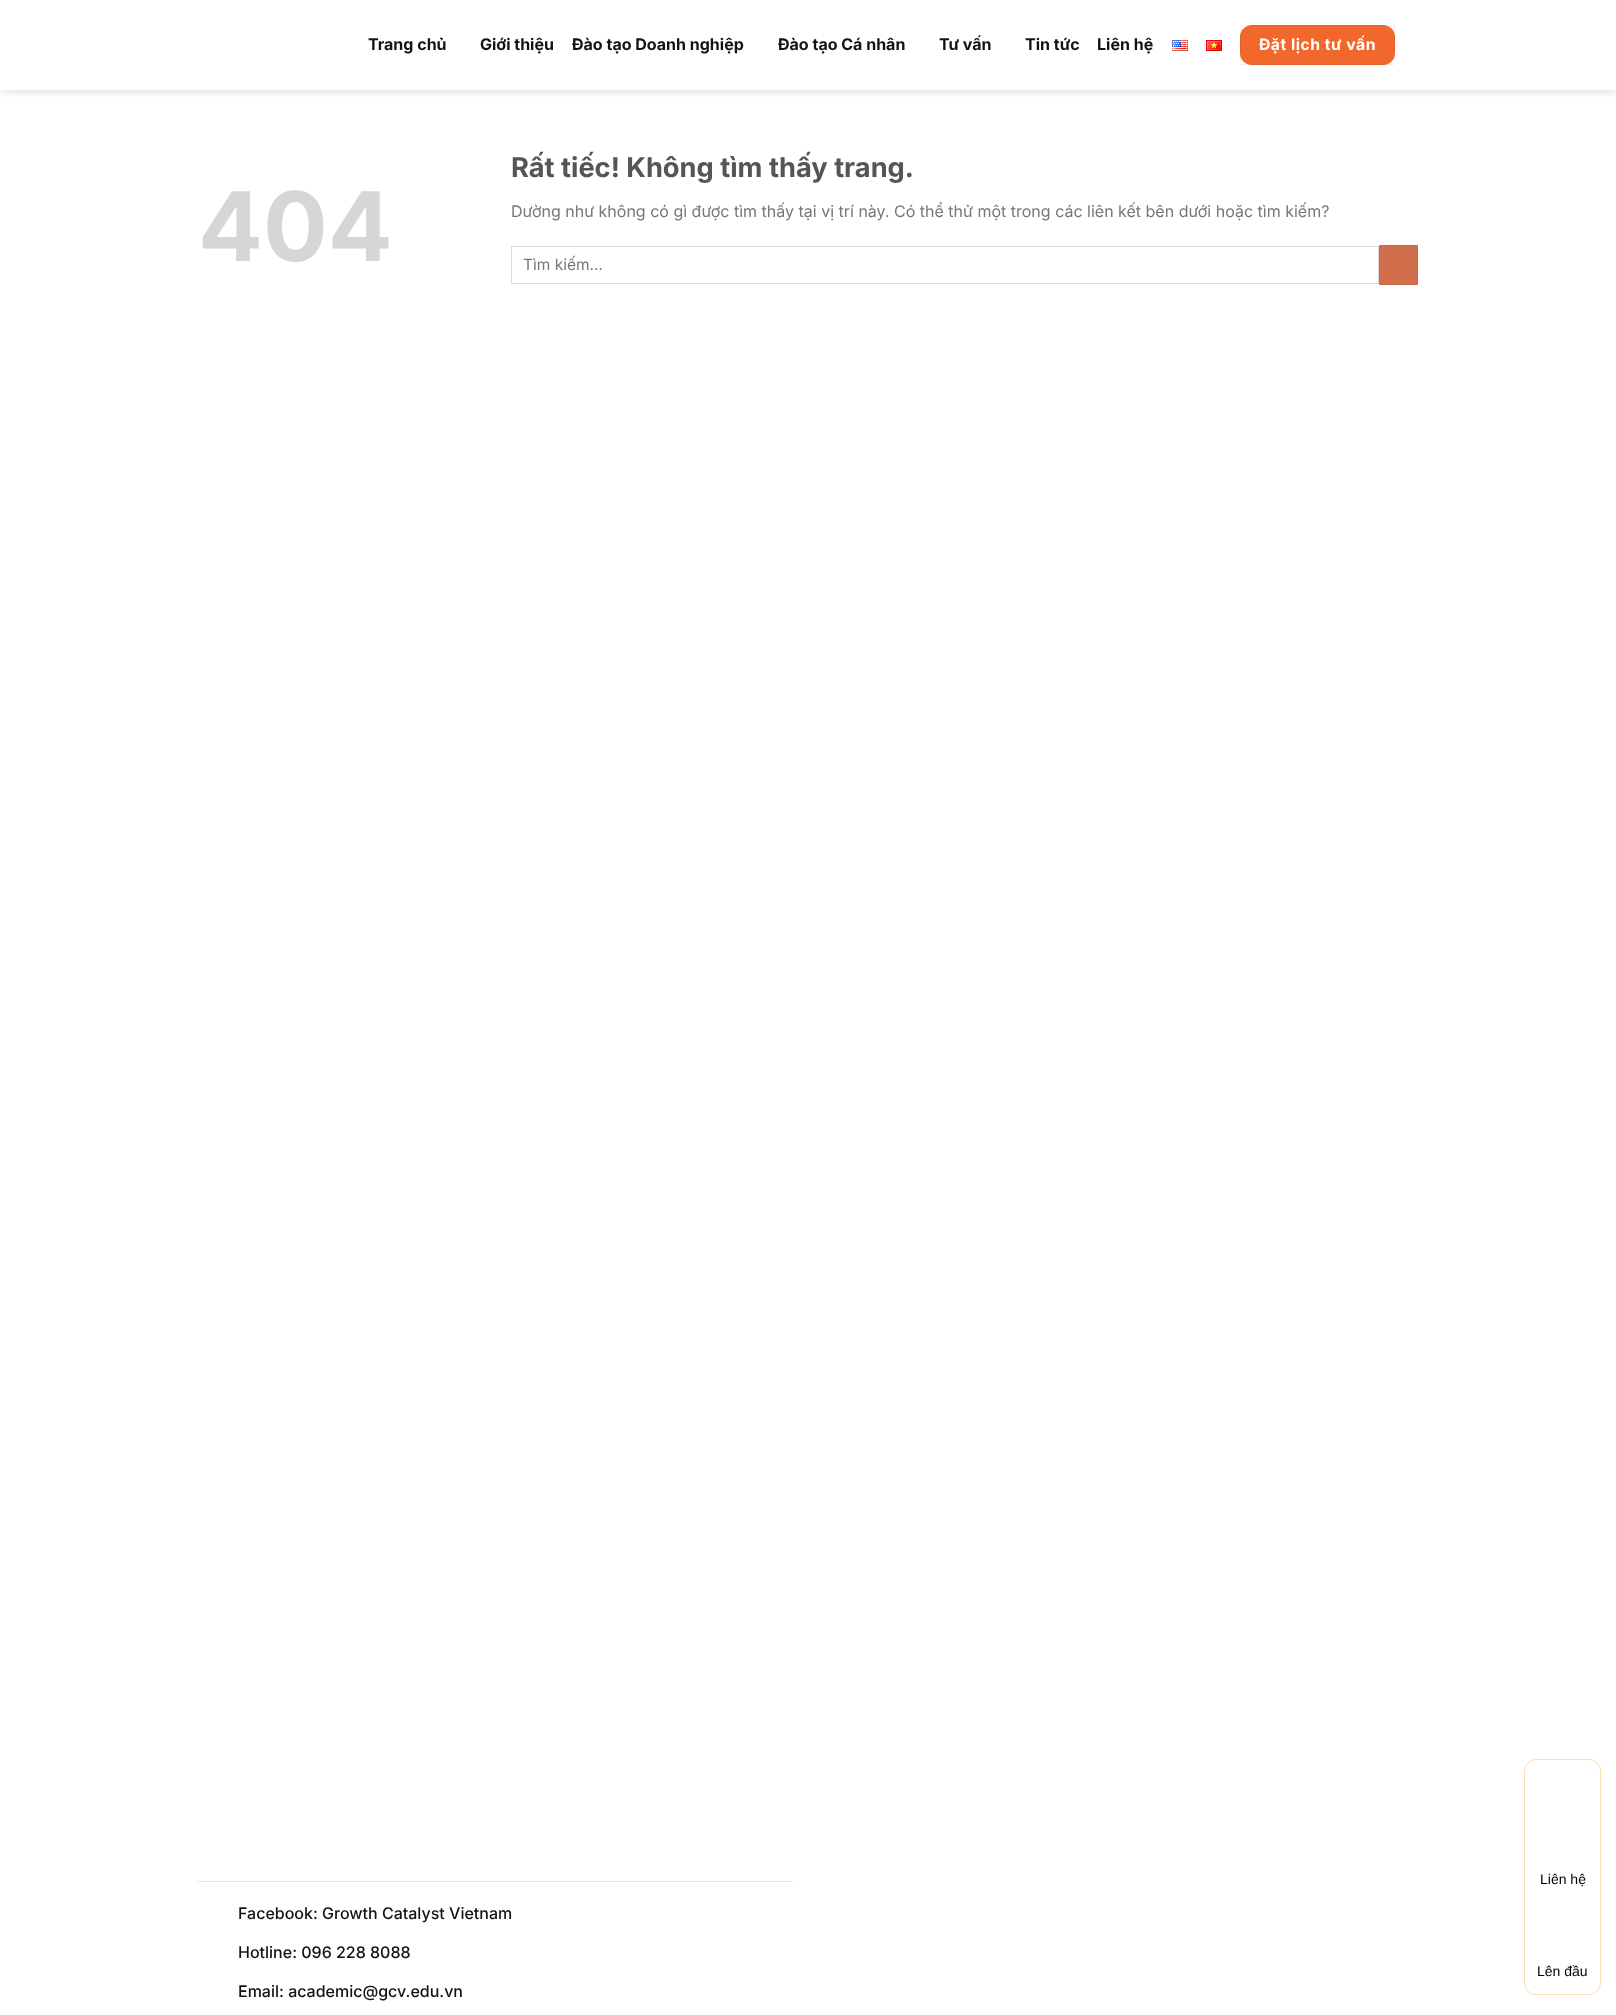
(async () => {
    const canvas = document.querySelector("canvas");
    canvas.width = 1616;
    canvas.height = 2015;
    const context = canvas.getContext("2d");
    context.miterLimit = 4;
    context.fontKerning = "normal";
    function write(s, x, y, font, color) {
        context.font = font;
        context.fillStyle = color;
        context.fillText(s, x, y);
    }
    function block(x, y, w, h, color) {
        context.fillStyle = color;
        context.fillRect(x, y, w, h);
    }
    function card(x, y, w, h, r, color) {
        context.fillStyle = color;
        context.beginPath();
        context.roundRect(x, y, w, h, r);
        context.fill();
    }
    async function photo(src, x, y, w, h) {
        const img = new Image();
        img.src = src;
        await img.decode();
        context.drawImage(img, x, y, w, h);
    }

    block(0, 0, 1616, 2015, "rgb(255, 255, 255)");
    context.save();
    context.beginPath();
    context.rect(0, 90, 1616, 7);
    context.clip();
    context.fillStyle = "rgba(0, 0, 0, 0.15)";
    context.filter = "blur(5px)";
    context.beginPath();
    context.rect(1, 1, 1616, 90);
    context.fill();
    context.filter = "none";
    context.restore();
    write("Trang chủ", 368, 50, "bold 16px Inter", "rgb(19, 19, 19)");
    write("Giới thiệu", 480, 50, "bold 16px Inter", "rgb(19, 19, 19)");
    write("Đào tạo Doanh nghiệp", 572, 50, "bold 16px Inter", "rgb(19, 19, 19)");
    write("Đào tạo Cá nhân", 778, 50, "bold 16px Inter", "rgb(19, 19, 19)");
    write("Tư vấn", 939, 50, "bold 16px Inter", "rgb(19, 19, 19)");
    write("Tin tức", 1025, 50, "bold 16px Inter", "rgb(19, 19, 19)");
    write("Liên hệ", 1097, 50, "bold 16px Inter", "rgb(19, 19, 19)");
    await photo("media/1.png", 1172, 40, 16, 11);
    await photo("media/2.png", 1206, 40, 16, 11);
    card(1240, 25, 155, 40, 12, "rgb(242, 103, 43)");
    context.strokeStyle = "rgba(0, 0, 0, 0.05)";
    context.strokeRect(1240.5, 25.5, 154, 39);
    context.letterSpacing = "0.5px";
    write("Đặt lịch tư vấn", 1259, 50, "bold 15.75px Inter", "rgb(255, 255, 255)");
    context.letterSpacing = "0px";
    write("404", 198, 261, "bold 96px Inter", "rgb(214, 214, 214)");
    write("Rất tiếc! Không tìm thấy trang.", 511, 177, "bold 27.25px Inter", "rgb(85, 85, 85)");
    write("Dường như không có gì được tìm thấy tại vị trí này. Có thể thử một trong các liên kết bên dưới hoặc tìm kiếm?", 511, 217, "16px Inter", "rgb(119, 119, 119)");
    context.strokeStyle = "rgb(221, 221, 221)";
    context.strokeRect(511.5, 246.5, 867, 37);
    write("Tìm kiếm…", 523, 270, "15.5px Inter", "rgb(119, 119, 119)");
    context.fillStyle = "rgb(210, 110, 75)";
    context.beginPath();
    context.rect(1379.5, 245.5, 38, 39);
    context.fill();
    context.strokeStyle = "rgb(200, 105, 71)";
    context.stroke();
    block(198, 1881, 595, 1, "rgb(230, 230, 230)");
    write("Facebook: Growth Catalyst Vietnam", 238, 1919, "500 16px Inter", "rgb(19, 19, 19)");
    write("Hotline: 096 228 8088", 238, 1958, "500 16px Inter", "rgb(19, 19, 19)");
    write("Email: academic@gcv.edu.vn", 238, 1997, "500 16px Inter", "rgb(19, 19, 19)");
    context.beginPath();
    context.roundRect(1524.5, 1759.5, 76, 235, 11.5);
    context.strokeStyle = "rgb(255, 221, 182)";
    context.stroke();
    write("Liên hệ", 1540, 1884, "14px Liberation Sans", "rgb(0, 0, 0)");
    write("Lên đầu", 1537, 1976, "14px Liberation Sans", "rgb(0, 0, 0)");
})();
